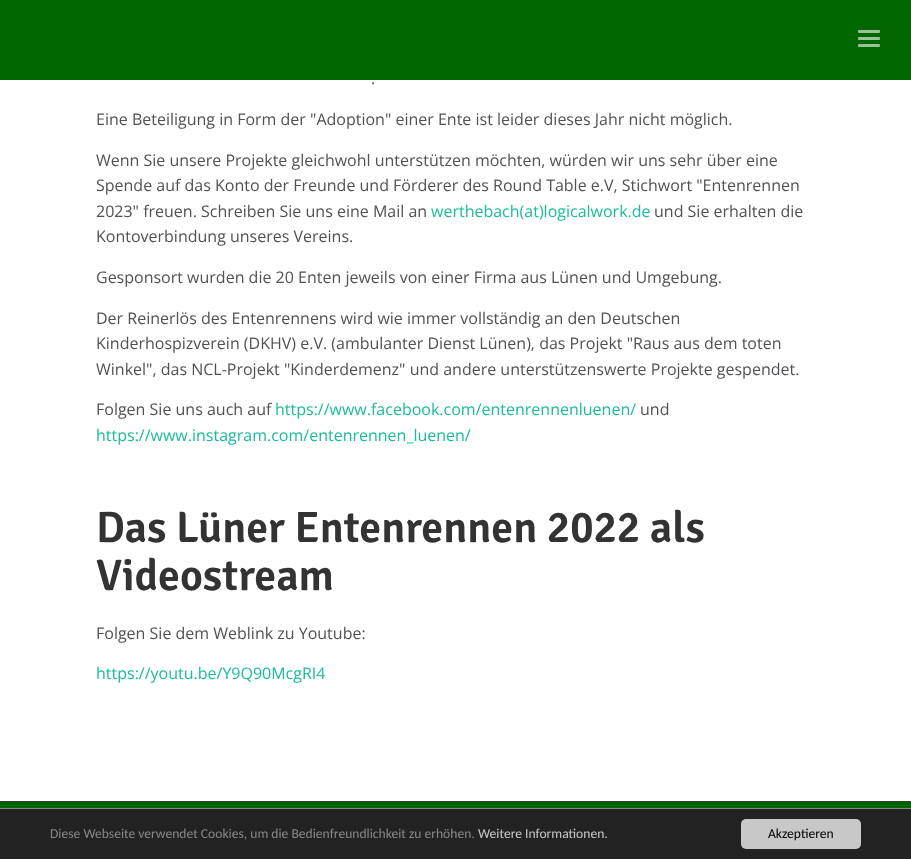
(async () => {
    const canvas = document.querySelector("canvas");
    canvas.width = 911;
    canvas.height = 859;
    const context = canvas.getContext("2d");
    context.miterLimit = 4;
    context.fontKerning = "normal";
    function write(s, x, y, font, color) {
        context.font = font;
        context.fillStyle = color;
        context.fillText(s, x, y);
    }
    function block(x, y, w, h, color) {
        context.fillStyle = color;
        context.fillRect(x, y, w, h);
    }
    function card(x, y, w, h, r, color) {
        context.fillStyle = color;
        context.beginPath();
        context.roundRect(x, y, w, h, r);
        context.fill();
    }

    block(0, 0, 911, 859, "rgb(255, 255, 255)");
    block(0, 0, 911, 80, "rgb(0, 102, 0)");
    card(858, 30, 22, 3, 1, "rgb(153, 194, 153)");
    card(858, 37, 22, 3, 1, "rgb(153, 194, 153)");
    card(858, 44, 22, 3, 1, "rgb(153, 194, 153)");
    write(".", 371, 84, "16px Open Sans", "rgb(81, 81, 87)");
    write("Eine Beteiligung in Form der \"Adoption\" einer Ente ist leider dieses Jahr nicht möglich.", 96, 125, "16px Open Sans", "rgb(81, 81, 87)");
    write("Wenn Sie unsere Projekte gleichwohl unterstützen möchten, würden wir uns sehr über eine", 96, 166, "16px Open Sans", "rgb(81, 81, 87)");
    write("Spende auf das Konto der Freunde und Förderer des Round Table e.V, Stichwort \"Entenrennen", 96, 191, "16px Open Sans", "rgb(81, 81, 87)");
    write("2023\" freuen. Schreiben Sie uns eine Mail an", 96, 217, "16px Open Sans", "rgb(81, 81, 87)");
    write("werthebach(at)logicalwork.de", 431, 217, "16px Open Sans", "rgb(26, 188, 156)");
    write("und Sie erhalten die", 654, 217, "16px Open Sans", "rgb(81, 81, 87)");
    write("Kontoverbindung unseres Vereins.", 96, 242, "16px Open Sans", "rgb(81, 81, 87)");
    write("Gesponsort wurden die 20 Enten jeweils von einer Firma aus Lünen und Umgebung.", 96, 283, "16px Open Sans", "rgb(81, 81, 87)");
    write("Der Reinerlös des Entenrennens wird wie immer vollständig an den Deutschen", 96, 324, "16px Open Sans", "rgb(81, 81, 87)");
    write("Kinderhospizverein (DKHV) e.V. (ambulanter Dienst Lünen), das Projekt \"Raus aus dem toten", 96, 349, "16px Open Sans", "rgb(81, 81, 87)");
    write("Winkel\", das NCL-Projekt \"Kinderdemenz\" und andere unterstützenswerte Projekte gespendet.", 96, 375, "16px Open Sans", "rgb(81, 81, 87)");
    write("Folgen Sie uns auch auf", 96, 415, "16px Open Sans", "rgb(81, 81, 87)");
    write("https://www.facebook.com/entenrennenluenen/", 275, 415, "16px Open Sans", "rgb(26, 188, 156)");
    write("und", 640, 415, "16px Open Sans", "rgb(81, 81, 87)");
    write("https://www.instagram.com/entenrennen_luenen/", 96, 441, "16px Open Sans", "rgb(26, 188, 156)");
    write("Das Lüner Entenrennen 2022 als", 96, 542, "600 44px Signika", "rgb(51, 51, 51)");
    write("Videostream", 96, 590, "600 44px Signika", "rgb(51, 51, 51)");
    write("Folgen Sie dem Weblink zu Youtube:", 96, 639, "16px Open Sans", "rgb(81, 81, 87)");
    write("https://youtu.be/Y9Q90McgRI4", 96, 679, "16px Open Sans", "rgb(26, 188, 156)");
    block(0, 802, 911, 6, "rgb(0, 102, 0)");
    block(0, 801, 911, 1, "rgb(60, 60, 60)");
    block(0, 809, 911, 50, "rgb(34, 34, 34)");
    block(0, 808, 911, 1, "rgb(136, 136, 136)");
    write("Diese Webseite verwendet Cookies, um die Bedienfreundlichkeit zu erhöhen.", 50, 838, "13.6px Carlito", "rgb(136, 136, 136)");
    write("Weitere Informationen.", 478, 838, "13.6px Carlito", "rgb(200, 200, 200)");
    card(741, 819, 120, 30, 5, "rgb(200, 200, 200)");
    write("Akzeptieren", 768, 838, "13.6px Carlito", "rgb(0, 0, 0)");
})();
